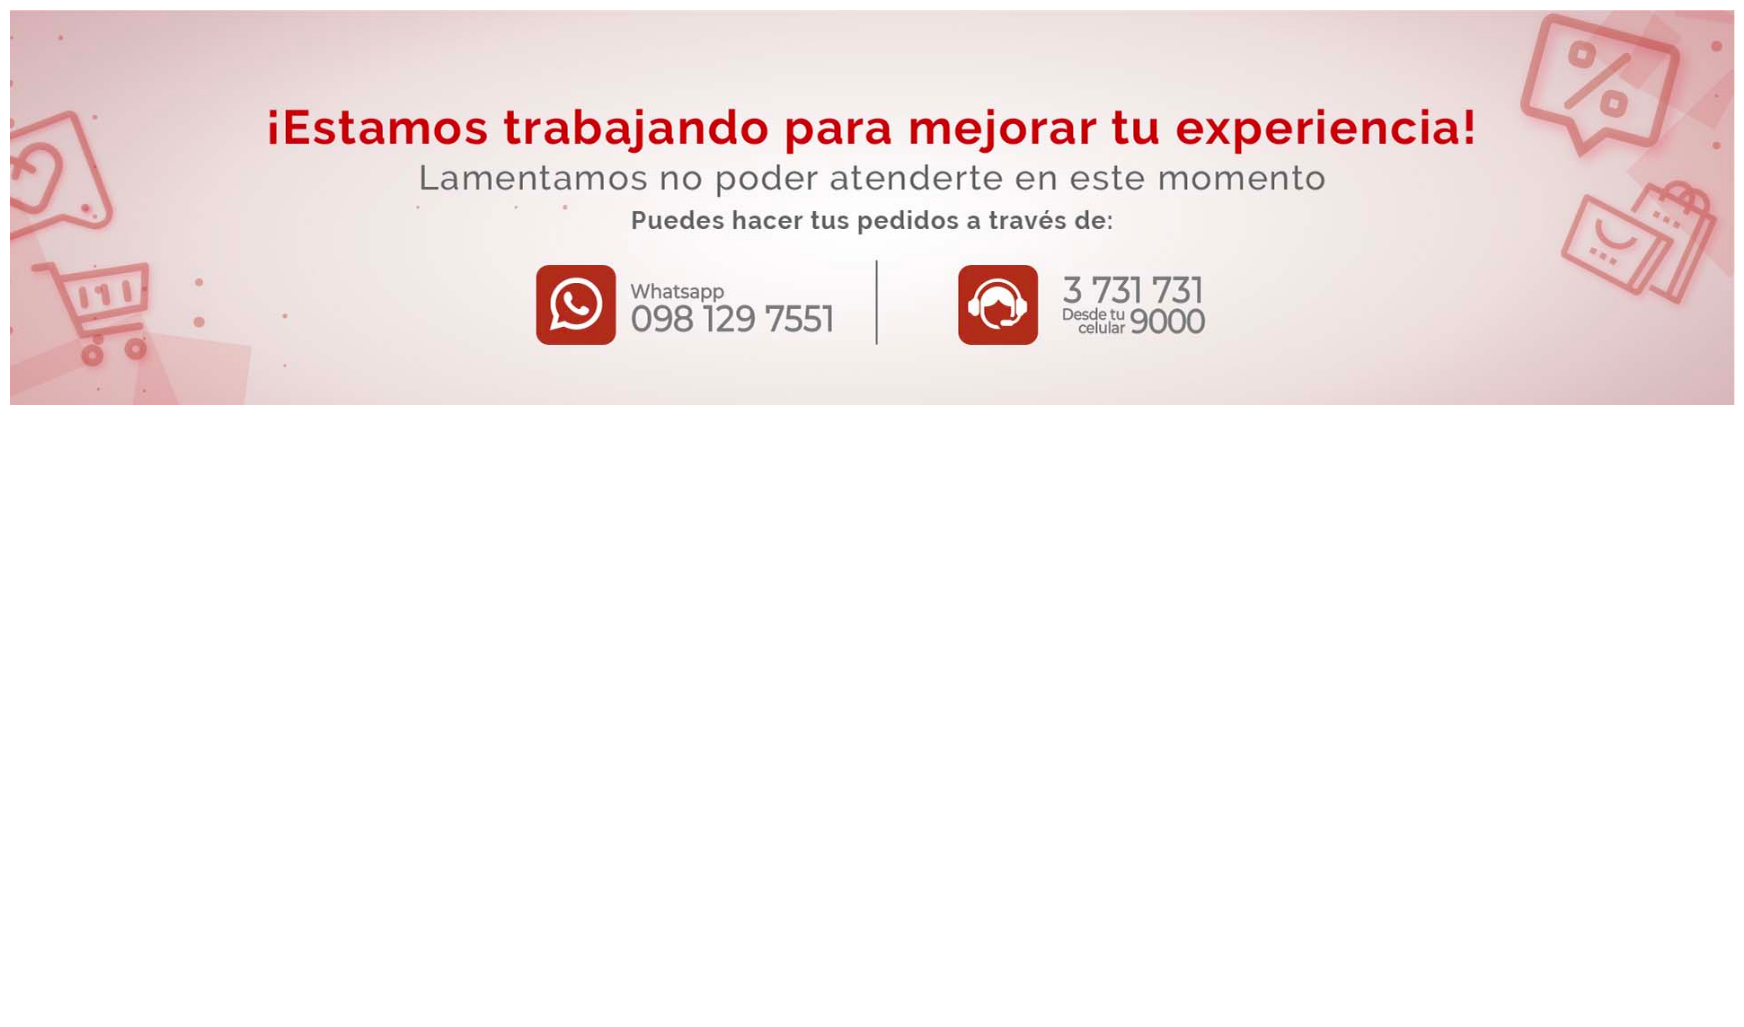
(async () => {
    const canvas = document.querySelector("canvas");
    canvas.width = 1744;
    canvas.height = 1027;
    const context = canvas.getContext("2d");
    context.miterLimit = 4;
    context.fontKerning = "normal";
    function block(x, y, w, h, color) {
        context.fillStyle = color;
        context.fillRect(x, y, w, h);
    }
    async function photo(src, x, y, w, h) {
        const img = new Image();
        img.src = src;
        await img.decode();
        context.drawImage(img, x, y, w, h);
    }

    block(0, 0, 1744, 1027, "rgb(255, 255, 255)");
    await photo("media/1.png", 10, 10, 1725, 395);
})();
